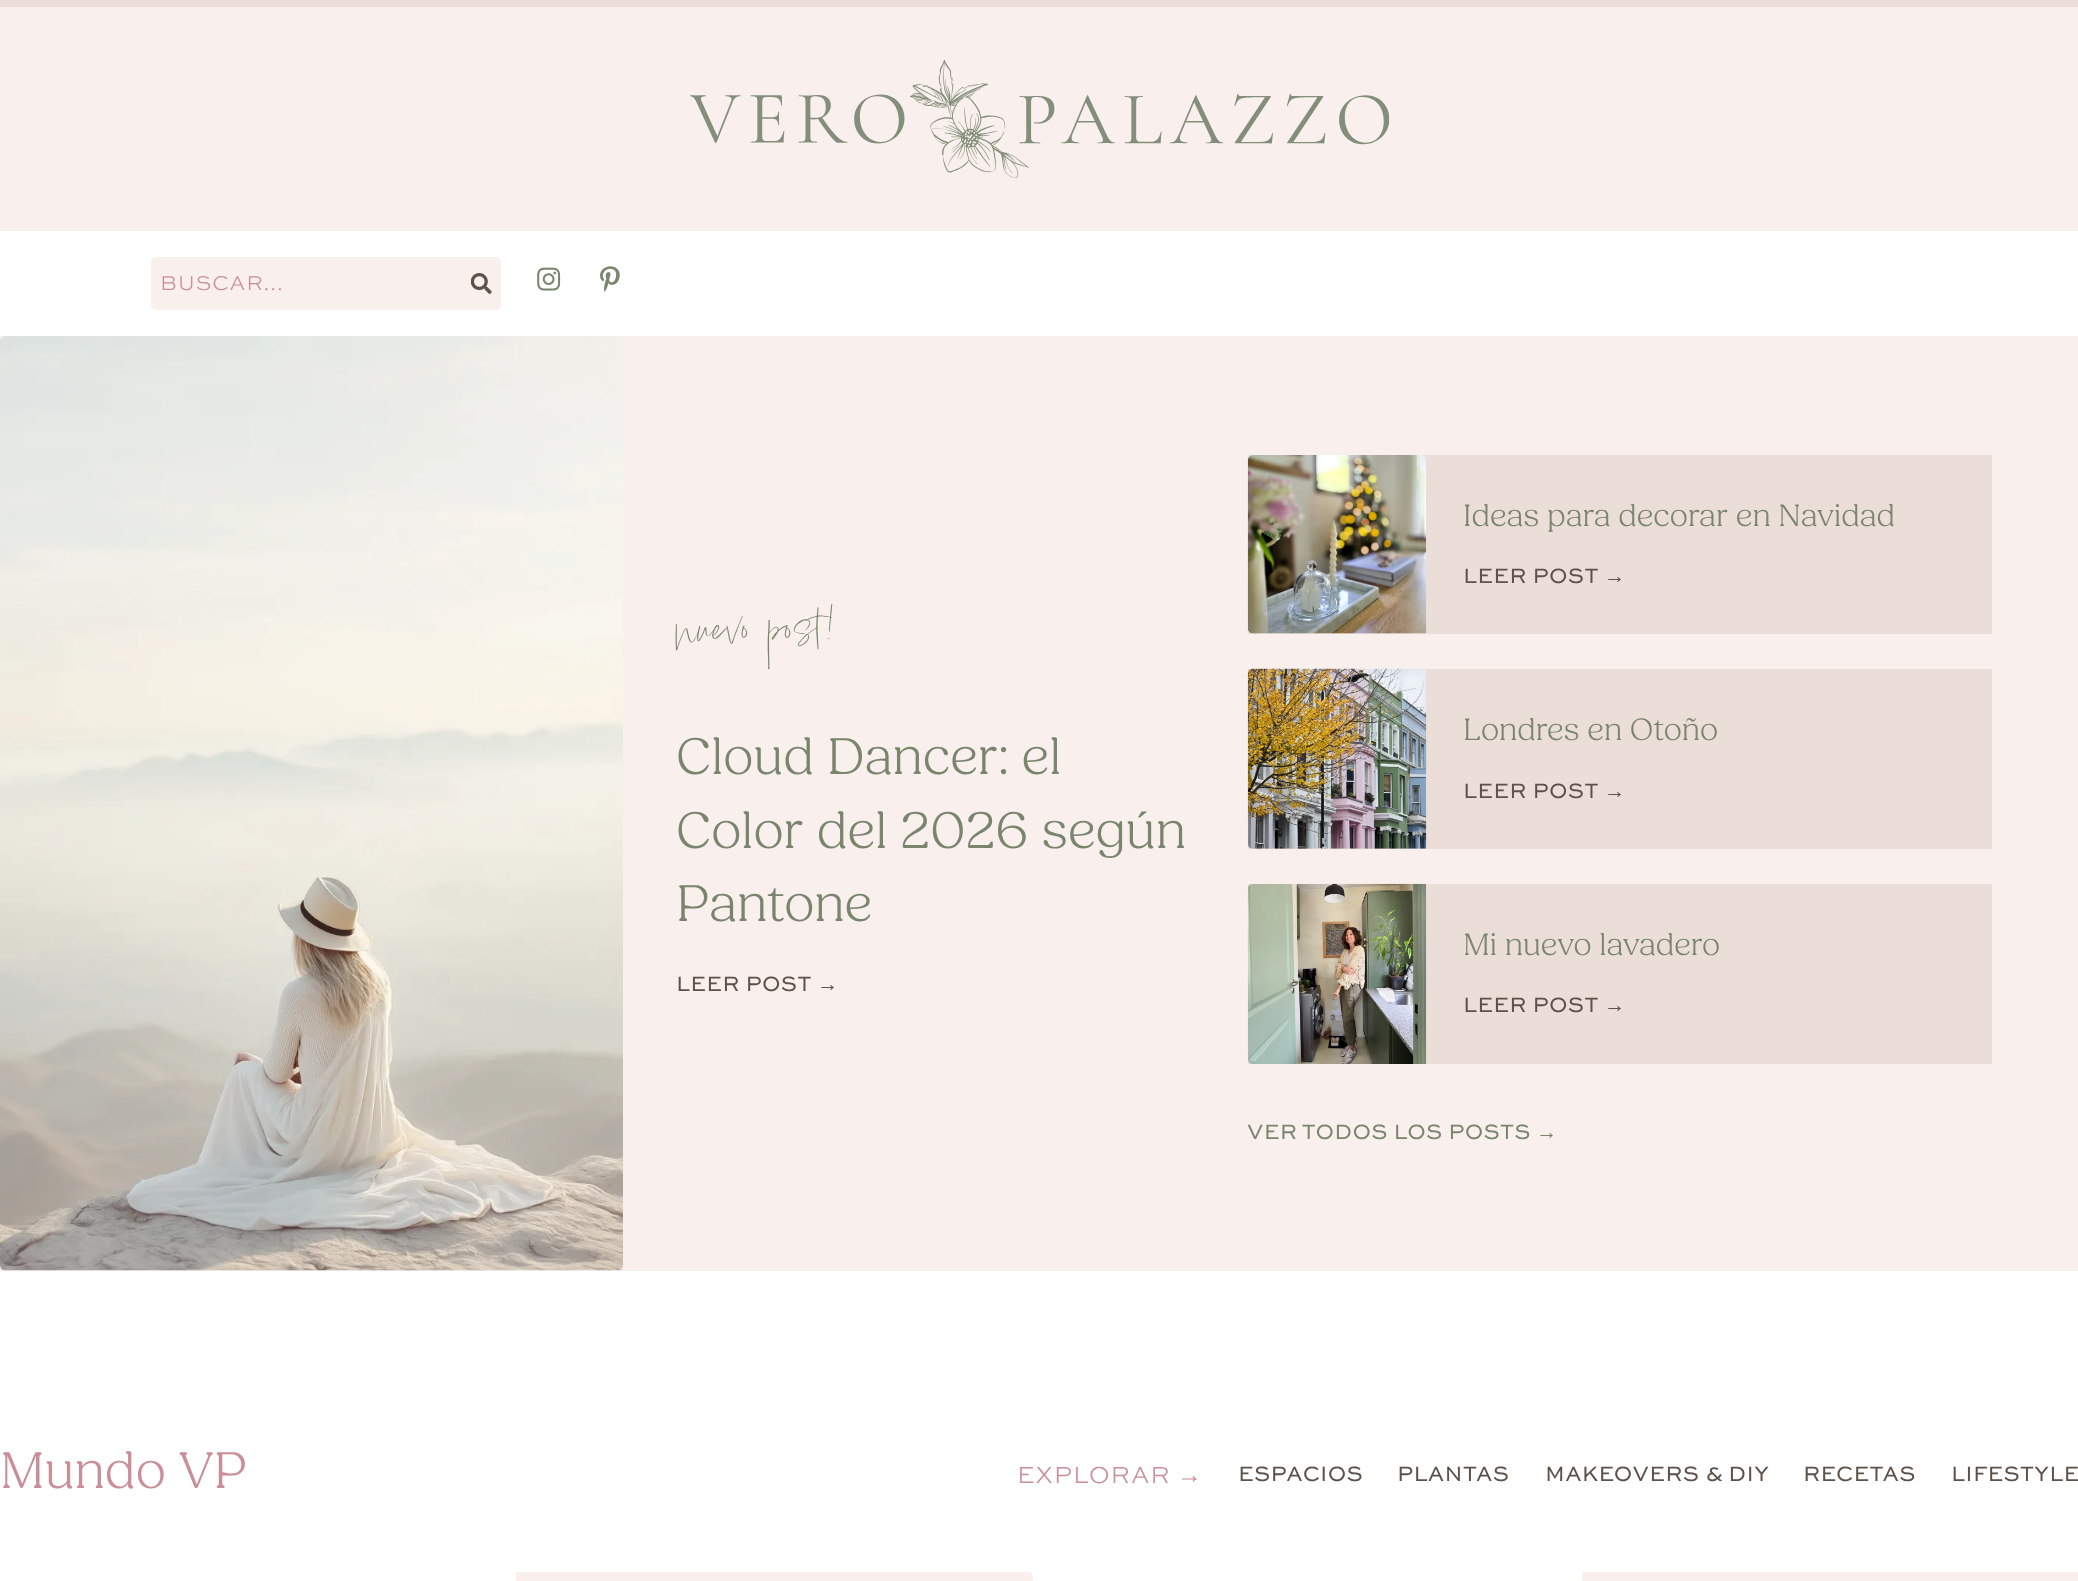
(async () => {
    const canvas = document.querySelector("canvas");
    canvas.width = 2078;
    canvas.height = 1581;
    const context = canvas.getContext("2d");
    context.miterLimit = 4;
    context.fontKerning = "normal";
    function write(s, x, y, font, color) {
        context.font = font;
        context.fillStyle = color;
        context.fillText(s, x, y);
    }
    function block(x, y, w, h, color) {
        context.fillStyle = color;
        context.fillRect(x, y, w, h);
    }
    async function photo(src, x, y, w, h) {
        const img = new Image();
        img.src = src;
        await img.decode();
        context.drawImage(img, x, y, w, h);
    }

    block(0, 0, 2078, 1581, "rgb(255, 255, 255)");
    block(0, 7, 2078, 224, "rgb(249, 240, 237)");
    block(0, 0, 2078, 7, "rgb(235, 221, 215)");
    await photo("media/1.png", 690, 60, 700, 119);
    context.fillStyle = "rgb(249, 240, 237)";
    context.beginPath();
    context.roundRect(151, 257, 311, 53, [5, 0, 0, 5]);
    context.fill();
    context.letterSpacing = "0.9px";
    write("BUSCAR...", 160, 290, "300 21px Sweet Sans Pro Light", "rgb(201, 142, 151)");
    context.fillStyle = "rgb(249, 240, 237)";
    context.beginPath();
    context.roundRect(462, 257, 39, 53, [0, 5, 5, 0]);
    context.fill();
    await photo("media/2.png", 471, 273, 21, 21);
    await photo("media/3.png", 537, 267, 24, 24);
    await photo("media/4.png", 600, 266, 20, 26);
    block(0, 336, 2078, 935, "rgb(249, 240, 237)");
    await photo("media/5.png", 0, 336, 623, 935);
    context.letterSpacing = "0px";
    write("nuevo post!", 676, 644, "56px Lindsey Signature", "rgb(122, 133, 110)");
    write("Cloud Dancer: el", 676, 774, "300 52.5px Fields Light", "rgb(122, 133, 110)");
    write("Color del 2026 según", 676, 848, "300 52.5px Fields Light", "rgb(122, 133, 110)");
    write("Pantone", 676, 921, "300 52.5px Fields Light", "rgb(122, 133, 110)");
    context.letterSpacing = "0.9px";
    write("LEER POST", 676, 991, "bold 21px Sweet Sans Pro Light", "rgb(93, 81, 73)");
    write("→", 817, 991, "bold 21px Liberation Sans", "rgb(93, 81, 73)");
    block(1248, 455, 744, 179, "rgb(235, 221, 215)");
    await photo("media/6.png", 1247, 455, 180, 179);
    context.letterSpacing = "0px";
    write("Ideas para decorar en Navidad", 1463, 526, "300 31.5px Fields Light", "rgb(122, 133, 110)");
    context.letterSpacing = "0.9px";
    write("LEER POST", 1463, 583, "bold 21px Sweet Sans Pro Light", "rgb(93, 81, 73)");
    write("→", 1604, 583, "bold 21px Liberation Sans", "rgb(93, 81, 73)");
    block(1248, 669, 744, 180, "rgb(235, 221, 215)");
    await photo("media/7.png", 1247, 668, 180, 181);
    context.letterSpacing = "0px";
    write("Londres en Otoño", 1463, 740, "300 31.5px Fields Light", "rgb(122, 133, 110)");
    context.letterSpacing = "0.9px";
    write("LEER POST", 1463, 798, "bold 21px Sweet Sans Pro Light", "rgb(93, 81, 73)");
    write("→", 1604, 798, "bold 21px Liberation Sans", "rgb(93, 81, 73)");
    block(1248, 884, 744, 180, "rgb(235, 221, 215)");
    await photo("media/8.png", 1247, 883, 180, 181);
    context.letterSpacing = "0px";
    write("Mi nuevo lavadero", 1463, 955, "300 31.5px Fields Light", "rgb(122, 133, 110)");
    context.letterSpacing = "0.9px";
    write("LEER POST", 1463, 1012, "bold 21px Sweet Sans Pro Light", "rgb(93, 81, 73)");
    write("→", 1604, 1012, "bold 21px Liberation Sans", "rgb(93, 81, 73)");
    write("VER TODOS LOS POSTS", 1247, 1139, "bold 21px Sweet Sans Pro Light", "rgb(122, 133, 110)");
    write("→", 1536, 1139, "bold 21px Liberation Sans", "rgb(122, 133, 110)");
    context.letterSpacing = "0px";
    write("Mundo VP", 0, 1488, "300 52.5px Fields Light", "rgb(201, 142, 151)");
    context.letterSpacing = "0.9px";
    write("EXPLORAR", 1017, 1483, "300 24.5px Sweet Sans Pro Light", "rgb(201, 142, 151)");
    write("→", 1177, 1483, "24.5px Liberation Serif", "rgb(201, 142, 151)");
    write("ESPACIOS", 1238, 1481, "bold 21px Sweet Sans Pro Light", "rgb(93, 81, 73)");
    write("PLANTAS", 1397, 1481, "bold 21px Sweet Sans Pro Light", "rgb(93, 81, 73)");
    write("MAKEOVERS & DIY", 1545, 1481, "bold 21px Sweet Sans Pro Light", "rgb(93, 81, 73)");
    write("RECETAS", 1803, 1481, "bold 21px Sweet Sans Pro Light", "rgb(93, 81, 73)");
    write("LIFESTYLE", 1951, 1481, "bold 21px Sweet Sans Pro Light", "rgb(93, 81, 73)");
    context.fillStyle = "rgb(249, 240, 237)";
    context.beginPath();
    context.moveTo(516, 1572);
    context.lineTo(1028, 1572);
    context.bezierCurveTo(1031, 1572, 1033, 1574, 1033, 1577);
    context.lineTo(1033, 1581);
    context.bezierCurveTo(1033, 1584, 1031, 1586, 1028, 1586);
    context.lineTo(516, 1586);
    context.closePath();
    context.fill();
    block(1582, 1572, 496, 9, "rgb(249, 240, 237)");
})();
